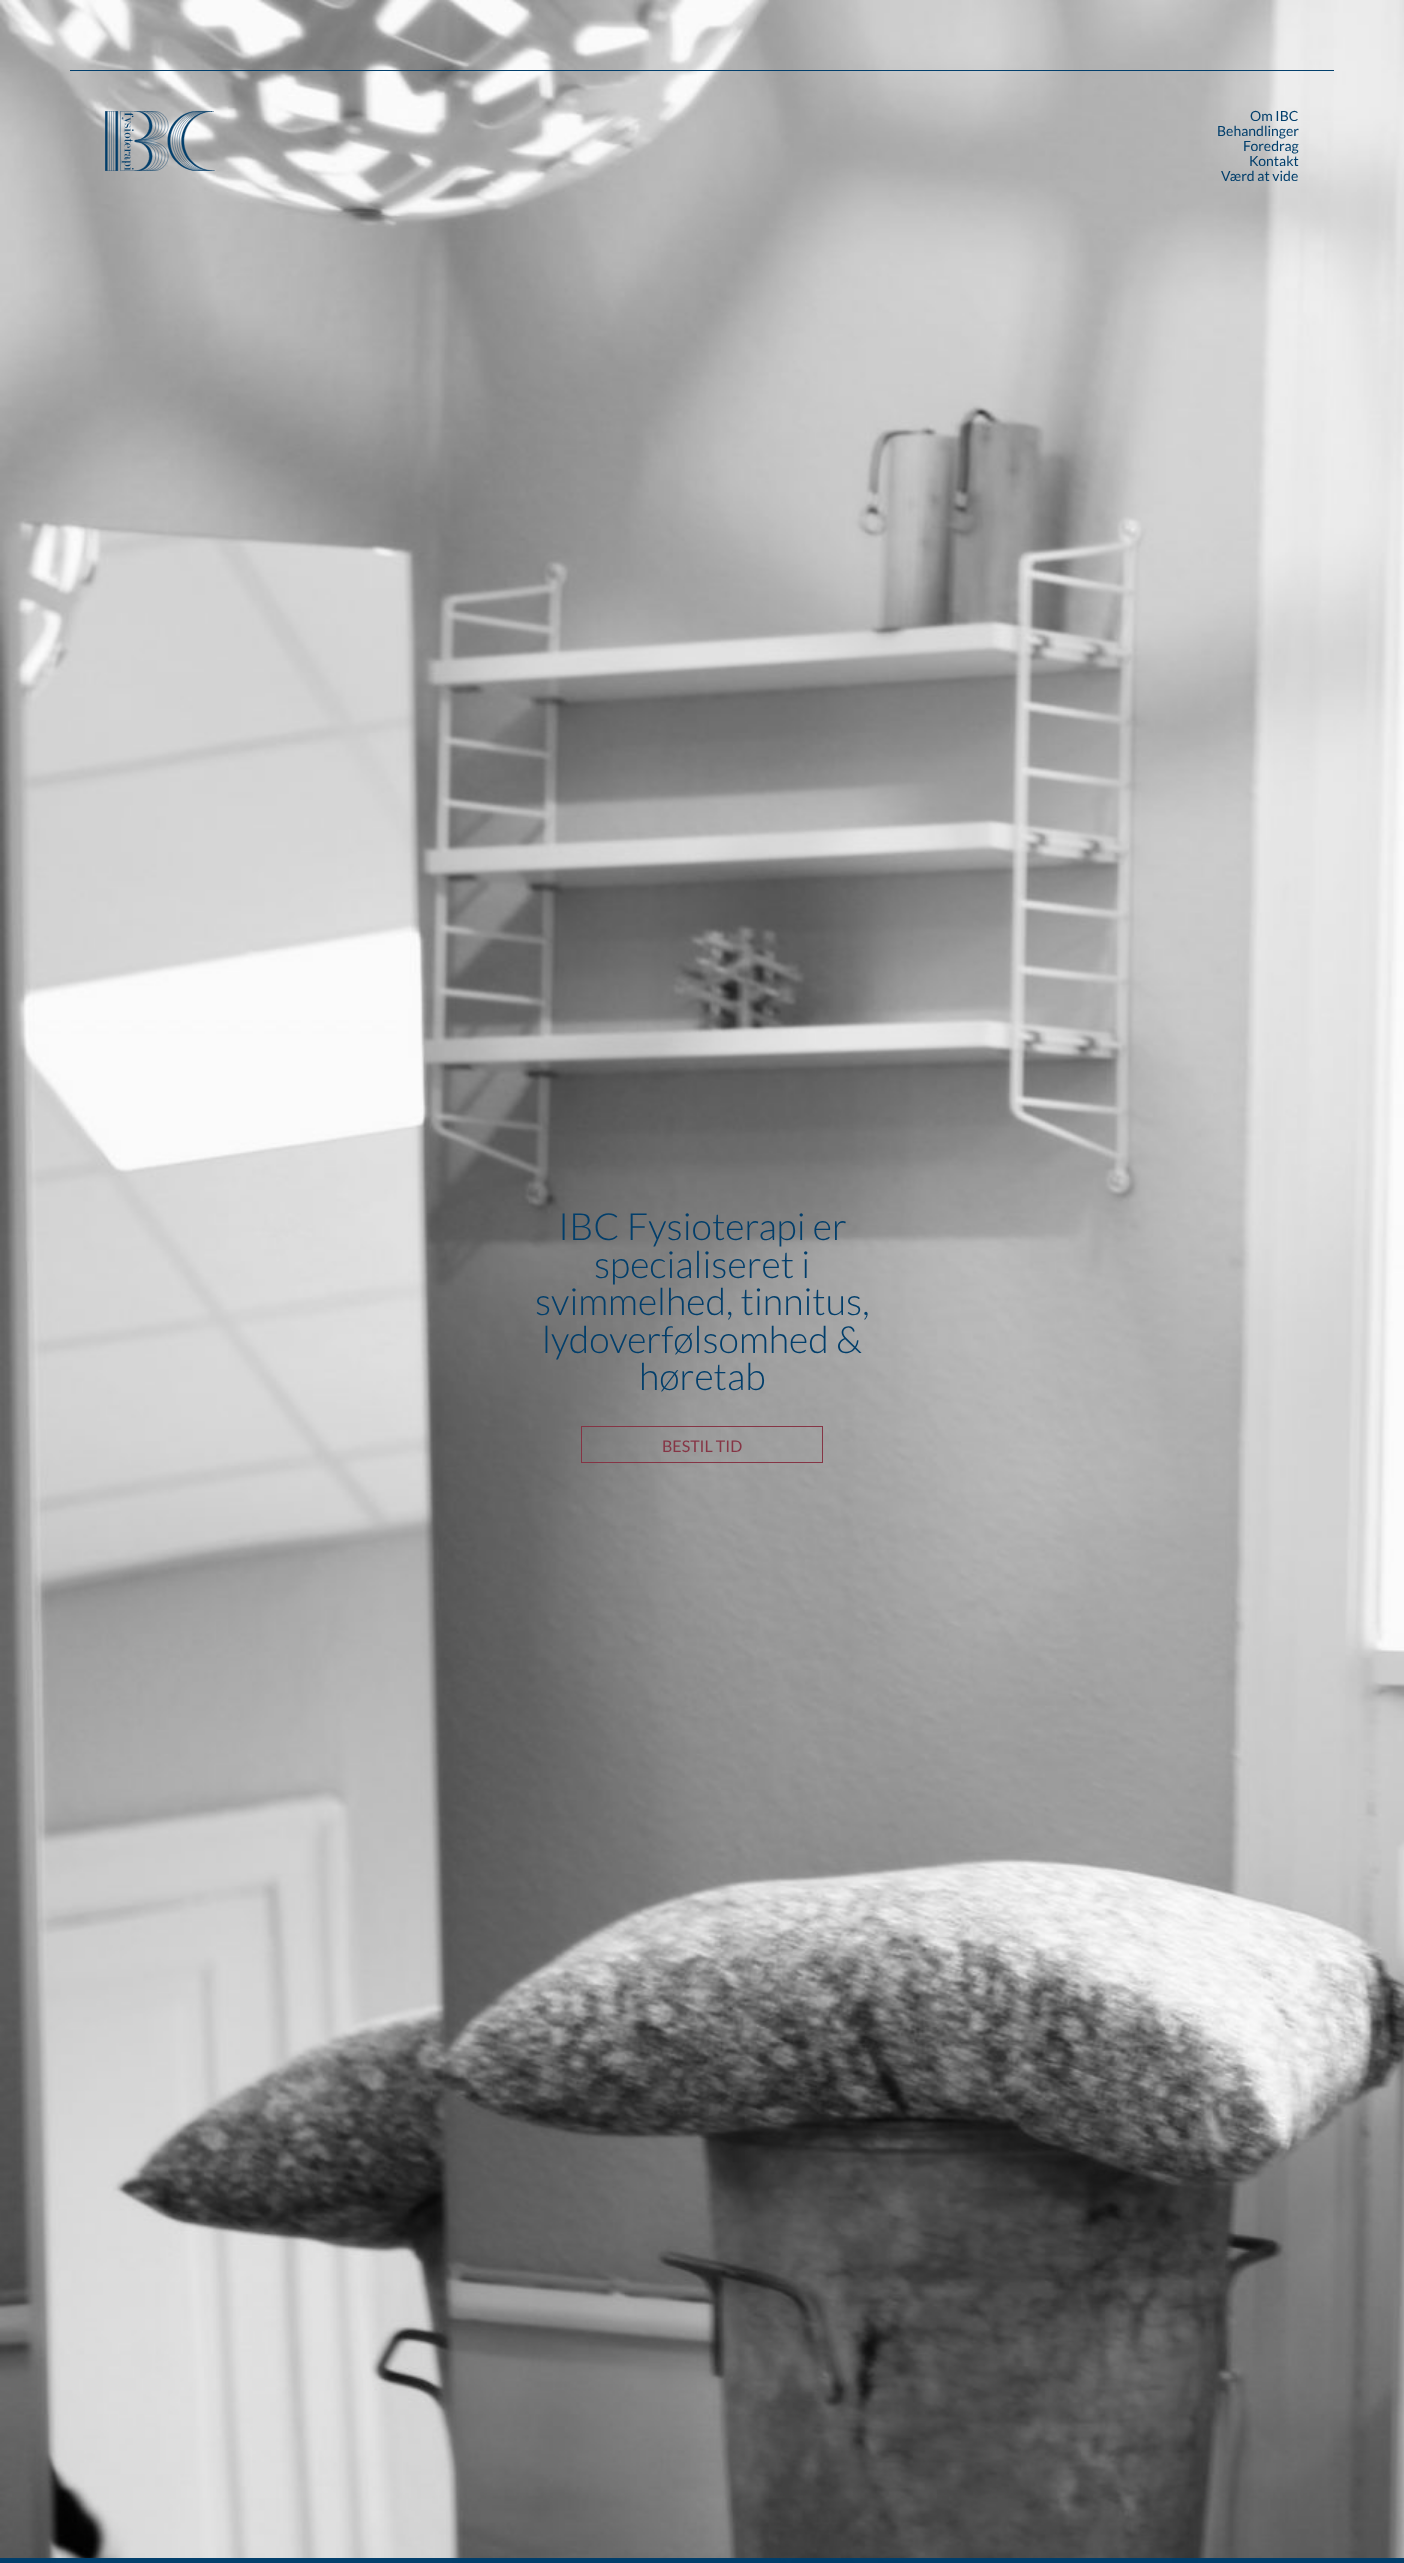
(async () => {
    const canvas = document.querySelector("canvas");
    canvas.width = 1404;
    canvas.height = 2563;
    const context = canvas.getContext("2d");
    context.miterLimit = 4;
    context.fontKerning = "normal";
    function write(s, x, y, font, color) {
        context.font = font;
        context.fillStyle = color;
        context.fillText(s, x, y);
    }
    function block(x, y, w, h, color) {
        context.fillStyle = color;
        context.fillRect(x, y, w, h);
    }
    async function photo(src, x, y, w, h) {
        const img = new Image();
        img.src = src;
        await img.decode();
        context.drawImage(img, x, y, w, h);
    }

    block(0, 0, 1404, 2563, "rgb(255, 255, 255)");
    await photo("media/1.png", 0, 0, 1404, 2563);
    block(70, 70, 1264, 1, "rgba(0, 62, 107, 0.99)");
    await photo("media/2.png", 105, 111, 110, 60);
    write("Om IBC", 1250, 121, "14px Lato", "rgb(1, 62, 107)");
    write("Behandlinger", 1217, 136, "14px Lato", "rgb(1, 62, 107)");
    write("Foredrag", 1243, 151, "14px Lato", "rgb(1, 62, 107)");
    write("Kontakt", 1249, 166, "14px Lato", "rgb(1, 62, 107)");
    write("Værd at vide", 1221, 181, "14px Lato", "rgb(1, 62, 107)");
    write("IBC Fysioterapi er", 558, 1240, "300 37.5px Lato", "rgb(1, 62, 107)");
    write("specialiseret i", 594, 1278, "300 37.5px Lato", "rgb(1, 62, 107)");
    write("svimmelhed, tinnitus,", 535, 1315, "300 37.5px Lato", "rgb(1, 62, 107)");
    write("lydoverfølsomhed &", 542, 1353, "300 37.5px Lato", "rgb(1, 62, 107)");
    write("høretab", 639, 1390, "300 37.5px Lato", "rgb(1, 62, 107)");
    context.strokeStyle = "rgba(134, 52, 68, 0.99)";
    context.strokeRect(581.5, 1426.5, 241, 36);
    write("BESTIL TID", 662, 1452, "16px Lato", "rgb(134, 53, 69)");
    block(0, 2558, 1404, 5, "rgba(0, 62, 107, 0.99)");
})();
